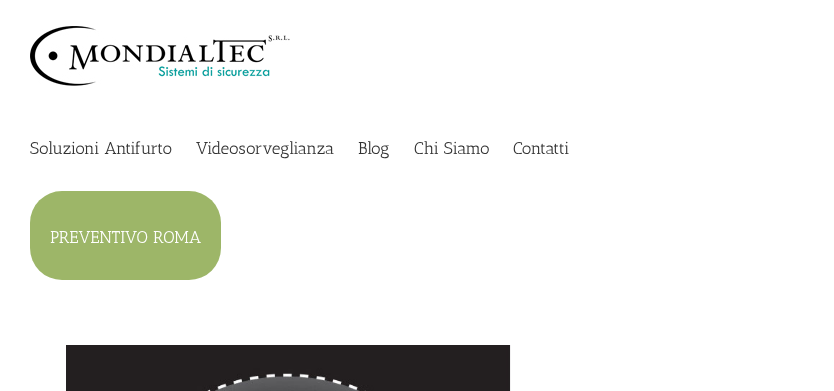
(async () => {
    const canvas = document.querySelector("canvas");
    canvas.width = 834;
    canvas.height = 391;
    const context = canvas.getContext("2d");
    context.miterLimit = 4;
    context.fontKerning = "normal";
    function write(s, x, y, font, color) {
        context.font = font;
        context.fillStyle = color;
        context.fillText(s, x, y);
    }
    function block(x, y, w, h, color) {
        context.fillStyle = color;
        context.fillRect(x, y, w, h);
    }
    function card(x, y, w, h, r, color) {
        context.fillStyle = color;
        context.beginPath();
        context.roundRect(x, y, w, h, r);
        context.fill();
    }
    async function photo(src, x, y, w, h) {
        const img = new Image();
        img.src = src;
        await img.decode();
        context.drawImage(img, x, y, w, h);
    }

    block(0, 0, 834, 391, "rgb(255, 255, 255)");
    await photo("media/1.png", 30, 26, 260, 60);
    write("Soluzioni Antifurto", 30, 154, "17px Antic Slab", "rgb(51, 51, 51)");
    write("Videosorveglianza", 196, 154, "17px Antic Slab", "rgb(51, 51, 51)");
    write("Blog", 358, 154, "17px Antic Slab", "rgb(51, 51, 51)");
    write("Chi Siamo", 414, 154, "17px Antic Slab", "rgb(51, 51, 51)");
    write("Contatti", 513, 154, "17px Antic Slab", "rgb(51, 51, 51)");
    card(30, 191, 191, 89, 32, "rgb(157, 182, 104)");
    write("PREVENTIVO ROMA", 50, 243, "17px Antic Slab", "rgb(255, 255, 255)");
    await photo("media/2.png", 66, 345, 445, 46);
})();
